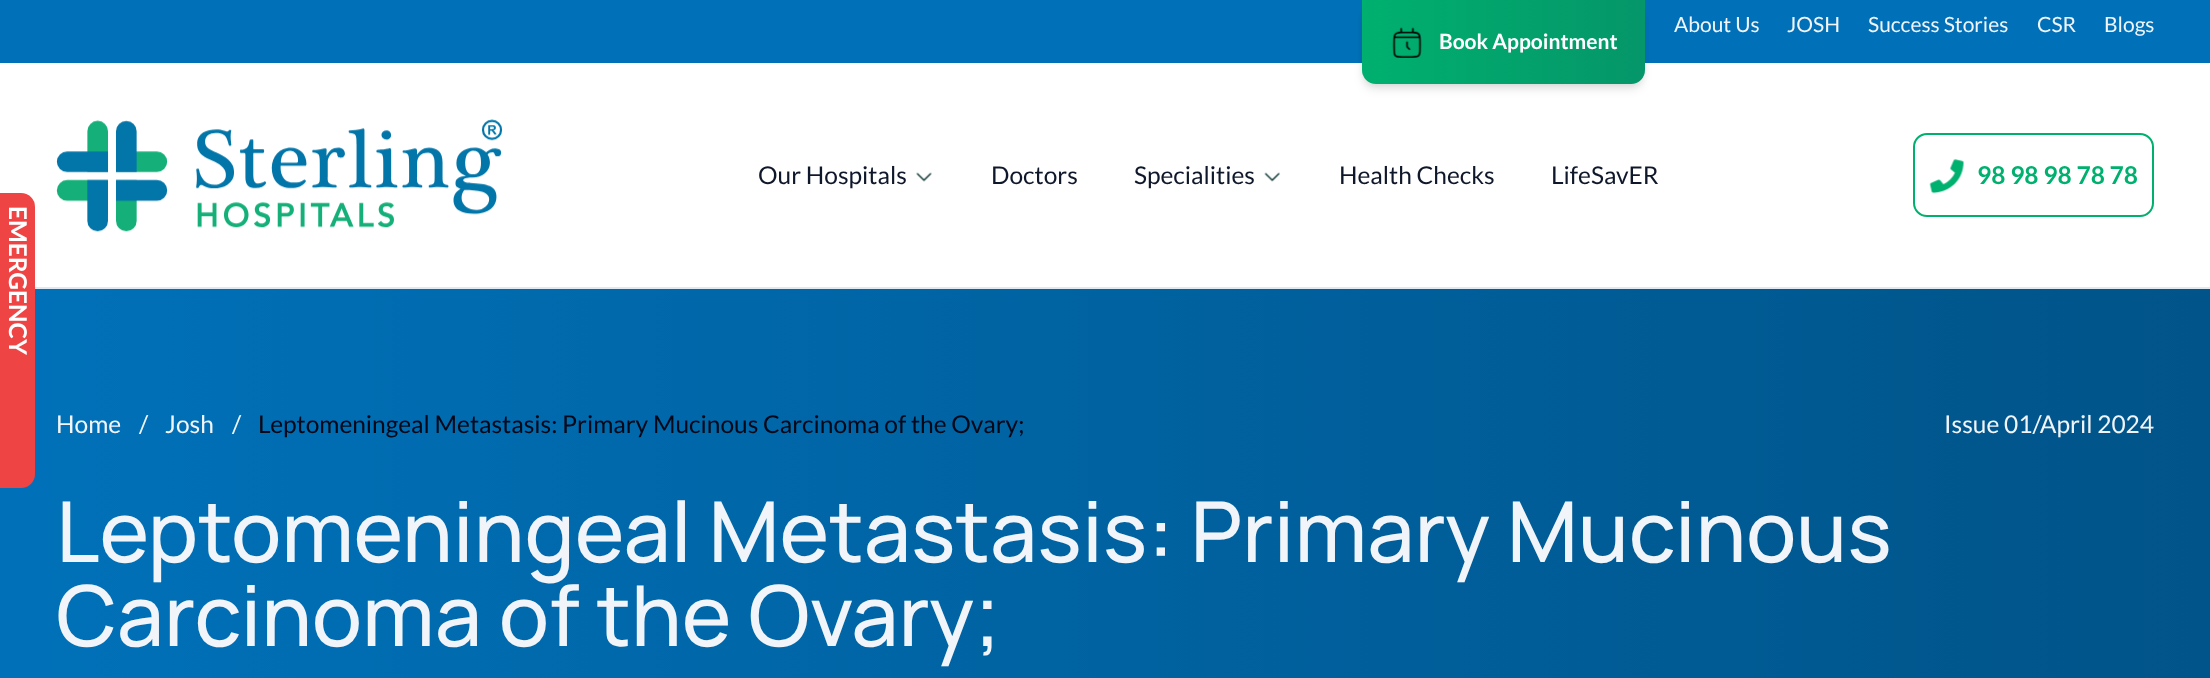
(async () => {
    const canvas = document.querySelector("canvas");
    canvas.width = 2210;
    canvas.height = 678;
    const context = canvas.getContext("2d");
    context.miterLimit = 4;
    context.fontKerning = "normal";
    function write(s, x, y, font, color) {
        context.font = font;
        context.fillStyle = color;
        context.fillText(s, x, y);
    }
    function block(x, y, w, h, color) {
        context.fillStyle = color;
        context.fillRect(x, y, w, h);
    }
    async function photo(src, x, y, w, h) {
        const img = new Image();
        img.src = src;
        await img.decode();
        context.drawImage(img, x, y, w, h);
    }
    let gradient;

    block(0, 0, 2210, 678, "rgb(255, 255, 255)");
    block(35, 287, 2175, 2, "rgb(226, 232, 240)");
    block(0, 0, 2210, 63, "rgb(0, 113, 185)");
    write("About Us", 1674, 32, "21px Lato", "rgb(241, 245, 249)");
    write("JOSH", 1787, 32, "21px Lato", "rgb(241, 245, 249)");
    write("Success Stories", 1868, 32, "21px Lato", "rgb(241, 245, 249)");
    write("CSR", 2037, 32, "21px Lato", "rgb(241, 245, 249)");
    write("Blogs", 2104, 32, "21px Lato", "rgb(241, 245, 249)");
    context.fillStyle = "rgba(0, 0, 0, 0.1)";
    context.filter = "blur(3.5px)";
    context.beginPath();
    context.roundRect(1365, 7, 277, 77, 11);
    context.fill();
    context.filter = "none";
    context.filter = "blur(5px)";
    context.beginPath();
    context.roundRect(1363, 9, 280, 80, 12);
    context.fill();
    context.filter = "none";
    gradient = context.createLinearGradient(1362, 42, 1645, 42);
    gradient.addColorStop(0, "rgb(0, 176, 111)");
    gradient.addColorStop(1, "rgb(5, 150, 105)");
    context.fillStyle = gradient;
    context.beginPath();
    context.roundRect(1362, 0, 283, 84, [0, 0, 14, 14]);
    context.fill();
    await photo("media/1.png", 1392, 27, 30, 31);
    write("Book Appointment", 1439, 49, "bold 21px Lato", "rgb(255, 255, 255)");
    await photo("media/2.png", 56, 119, 447, 113);
    write("Our Hospitals", 758, 184, "24.5px Lato", "rgb(15, 23, 42)");
    await photo("media/3.png", 916, 172, 16, 10);
    write("Doctors", 991, 184, "24.5px Lato", "rgb(15, 23, 42)");
    write("Specialities", 1134, 184, "24.5px Lato", "rgb(15, 23, 42)");
    await photo("media/4.png", 1264, 172, 16, 10);
    write("Health Checks", 1339, 184, "24.5px Lato", "rgb(15, 23, 42)");
    write("LifeSavER", 1551, 184, "24.5px Lato", "rgb(15, 23, 42)");
    context.beginPath();
    context.roundRect(1914, 134, 239, 82, 13);
    context.strokeStyle = "rgb(0, 176, 111)";
    context.lineWidth = 2;
    context.stroke();
    await photo("media/5.png", 1929, 159, 35, 35);
    write("98 98 98 78 78", 1977, 184, "bold 24.5px Lato", "rgb(0, 176, 111)");
    gradient = context.createLinearGradient(0, 564, 2210, 563);
    gradient.addColorStop(0, "rgb(0, 113, 185)");
    gradient.addColorStop(1, "rgb(0, 84, 137)");
    context.fillStyle = gradient;
    context.fillRect(0, 289, 2210, 389);
    context.fillStyle = "rgb(239, 68, 68)";
    context.beginPath();
    context.roundRect(0, 193, 35, 295, [0, 14, 14, 0]);
    context.fill();
    context.fillStyle = "rgb(255, 255, 255)";
    context.save();
    context.translate(9, 206);
    context.rotate(90 * Math.PI / 180);
    context.fillText("EMERGENCY", 0, 0);
    context.restore();
    write("Home", 56, 433, "24.5px Lato", "rgb(241, 245, 249)");
    write("/", 139, 433, "24.5px Lato", "rgb(241, 245, 249)");
    write("Josh", 165, 433, "24.5px Lato", "rgb(241, 245, 249)");
    write("/", 232, 433, "24.5px Lato", "rgb(241, 245, 249)");
    write("Leptomeningeal Metastasis: Primary Mucinous Carcinoma of the Ovary;", 258, 433, "24.5px Lato", "rgb(2, 8, 23)");
    write("Issue 01/April 2024", 1944, 433, "24.5px Lato", "rgb(241, 245, 249)");
    write("Leptomeningeal Metastasis: Primary Mucinous", 56, 562, "500 84px Manrope", "rgb(241, 245, 249)");
    write("Carcinoma of the Ovary;", 56, 646, "500 84px Manrope", "rgb(241, 245, 249)");
})();
